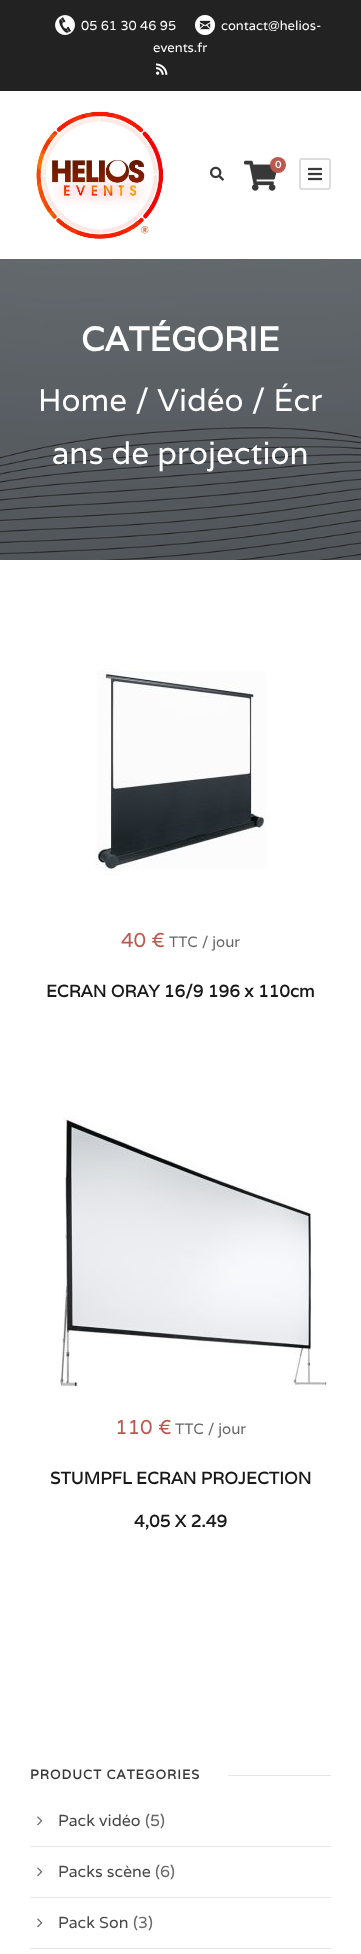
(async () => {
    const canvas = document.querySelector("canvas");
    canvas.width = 361;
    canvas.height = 1954;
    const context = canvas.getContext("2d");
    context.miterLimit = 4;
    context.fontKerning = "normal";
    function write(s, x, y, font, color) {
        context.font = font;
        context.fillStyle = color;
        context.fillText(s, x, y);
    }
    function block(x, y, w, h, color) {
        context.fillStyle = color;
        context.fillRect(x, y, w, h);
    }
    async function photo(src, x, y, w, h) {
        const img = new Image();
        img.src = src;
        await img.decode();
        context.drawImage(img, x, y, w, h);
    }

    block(0, 0, 361, 1954, "rgb(255, 255, 255)");
    block(0, 0, 361, 91, "rgb(34, 34, 34)");
    await photo("media/1.png", 55, 15, 20, 20);
    write("05 61 30 46 95", 81, 30, "13px Varela", "rgb(255, 255, 255)");
    await photo("media/2.png", 195, 15, 20, 20);
    write("contact@helios-", 221, 30, "13px Varela", "rgb(255, 255, 255)");
    write("events.fr", 153, 52, "13px Varela", "rgb(255, 255, 255)");
    await photo("media/3.png", 156, 63, 12, 12);
    await photo("media/4.png", 36, 111, 128, 129);
    await photo("media/5.png", 244, 160, 33, 31);
    context.fillStyle = "rgb(189, 88, 78)";
    context.beginPath();
    context.arc(278, 165, 8, 0, Math.PI * 2);
    context.fill();
    write("0", 275, 168, "bold 10px Varela", "rgb(255, 255, 255)");
    context.beginPath();
    context.roundRect(300, 159, 30, 30, 2);
    context.strokeStyle = "rgb(221, 221, 221)";
    context.lineWidth = 2;
    context.stroke();
    await photo("media/6.png", 308, 167, 14, 14);
    await photo("media/7.png", 210, 166, 14, 15);
    await photo("media/8.png", 0, 259, 361, 301);
    write("CATÉGORIE", 81, 351, "bold 34px Varela", "rgb(255, 255, 255)");
    write("Home / Vidéo / Écr", 38, 411, "31.25px Varela", "rgb(255, 255, 255)");
    write("ans de projection", 52, 464, "31.25px Varela", "rgb(255, 255, 255)");
    await photo("media/9.png", 95, 668, 176, 208);
    write("40 €", 121, 947, "20px Varela", "rgb(189, 88, 78)");
    write("TTC / jour", 169, 947, "15px Varela", "rgb(102, 102, 102)");
    write("ECRAN ORAY 16/9 196 x 110cm", 46, 997, "bold 17px Varela", "rgb(25, 25, 25)");
    await photo("media/10.png", 56, 1115, 271, 272);
    write("110 €", 115, 1434, "20px Varela", "rgb(189, 88, 78)");
    write("TTC / jour", 175, 1434, "15px Varela", "rgb(102, 102, 102)");
    write("STUMPFL ECRAN PROJECTION", 50, 1484, "bold 17px Varela", "rgb(25, 25, 25)");
    write("4,05 X 2.49", 134, 1527, "bold 17px Varela", "rgb(25, 25, 25)");
    context.letterSpacing = "1px";
    write("PRODUCT CATEGORIES", 30, 1779, "bold 13px Varela", "rgb(56, 56, 56)");
    block(228, 1775, 103, 1, "rgb(230, 230, 230)");
    block(30, 1846, 301, 1, "rgb(230, 230, 230)");
    await photo("media/11.png", 37, 1816, 6, 10);
    context.letterSpacing = "0px";
    write("Pack vidéo", 58, 1826, "16px Varela", "rgb(72, 72, 72)");
    write("(5)", 145, 1826, "16px Varela", "rgb(102, 102, 102)");
    block(30, 1897, 301, 1, "rgb(230, 230, 230)");
    await photo("media/11.png", 37, 1867, 6, 10);
    write("Packs scène", 58, 1877, "16px Varela", "rgb(72, 72, 72)");
    write("(6)", 155, 1877, "16px Varela", "rgb(102, 102, 102)");
    block(30, 1948, 301, 1, "rgb(230, 230, 230)");
    await photo("media/11.png", 37, 1918, 6, 10);
    write("Pack Son", 58, 1928, "16px Varela", "rgb(72, 72, 72)");
    write("(3)", 133, 1928, "16px Varela", "rgb(102, 102, 102)");
})();
